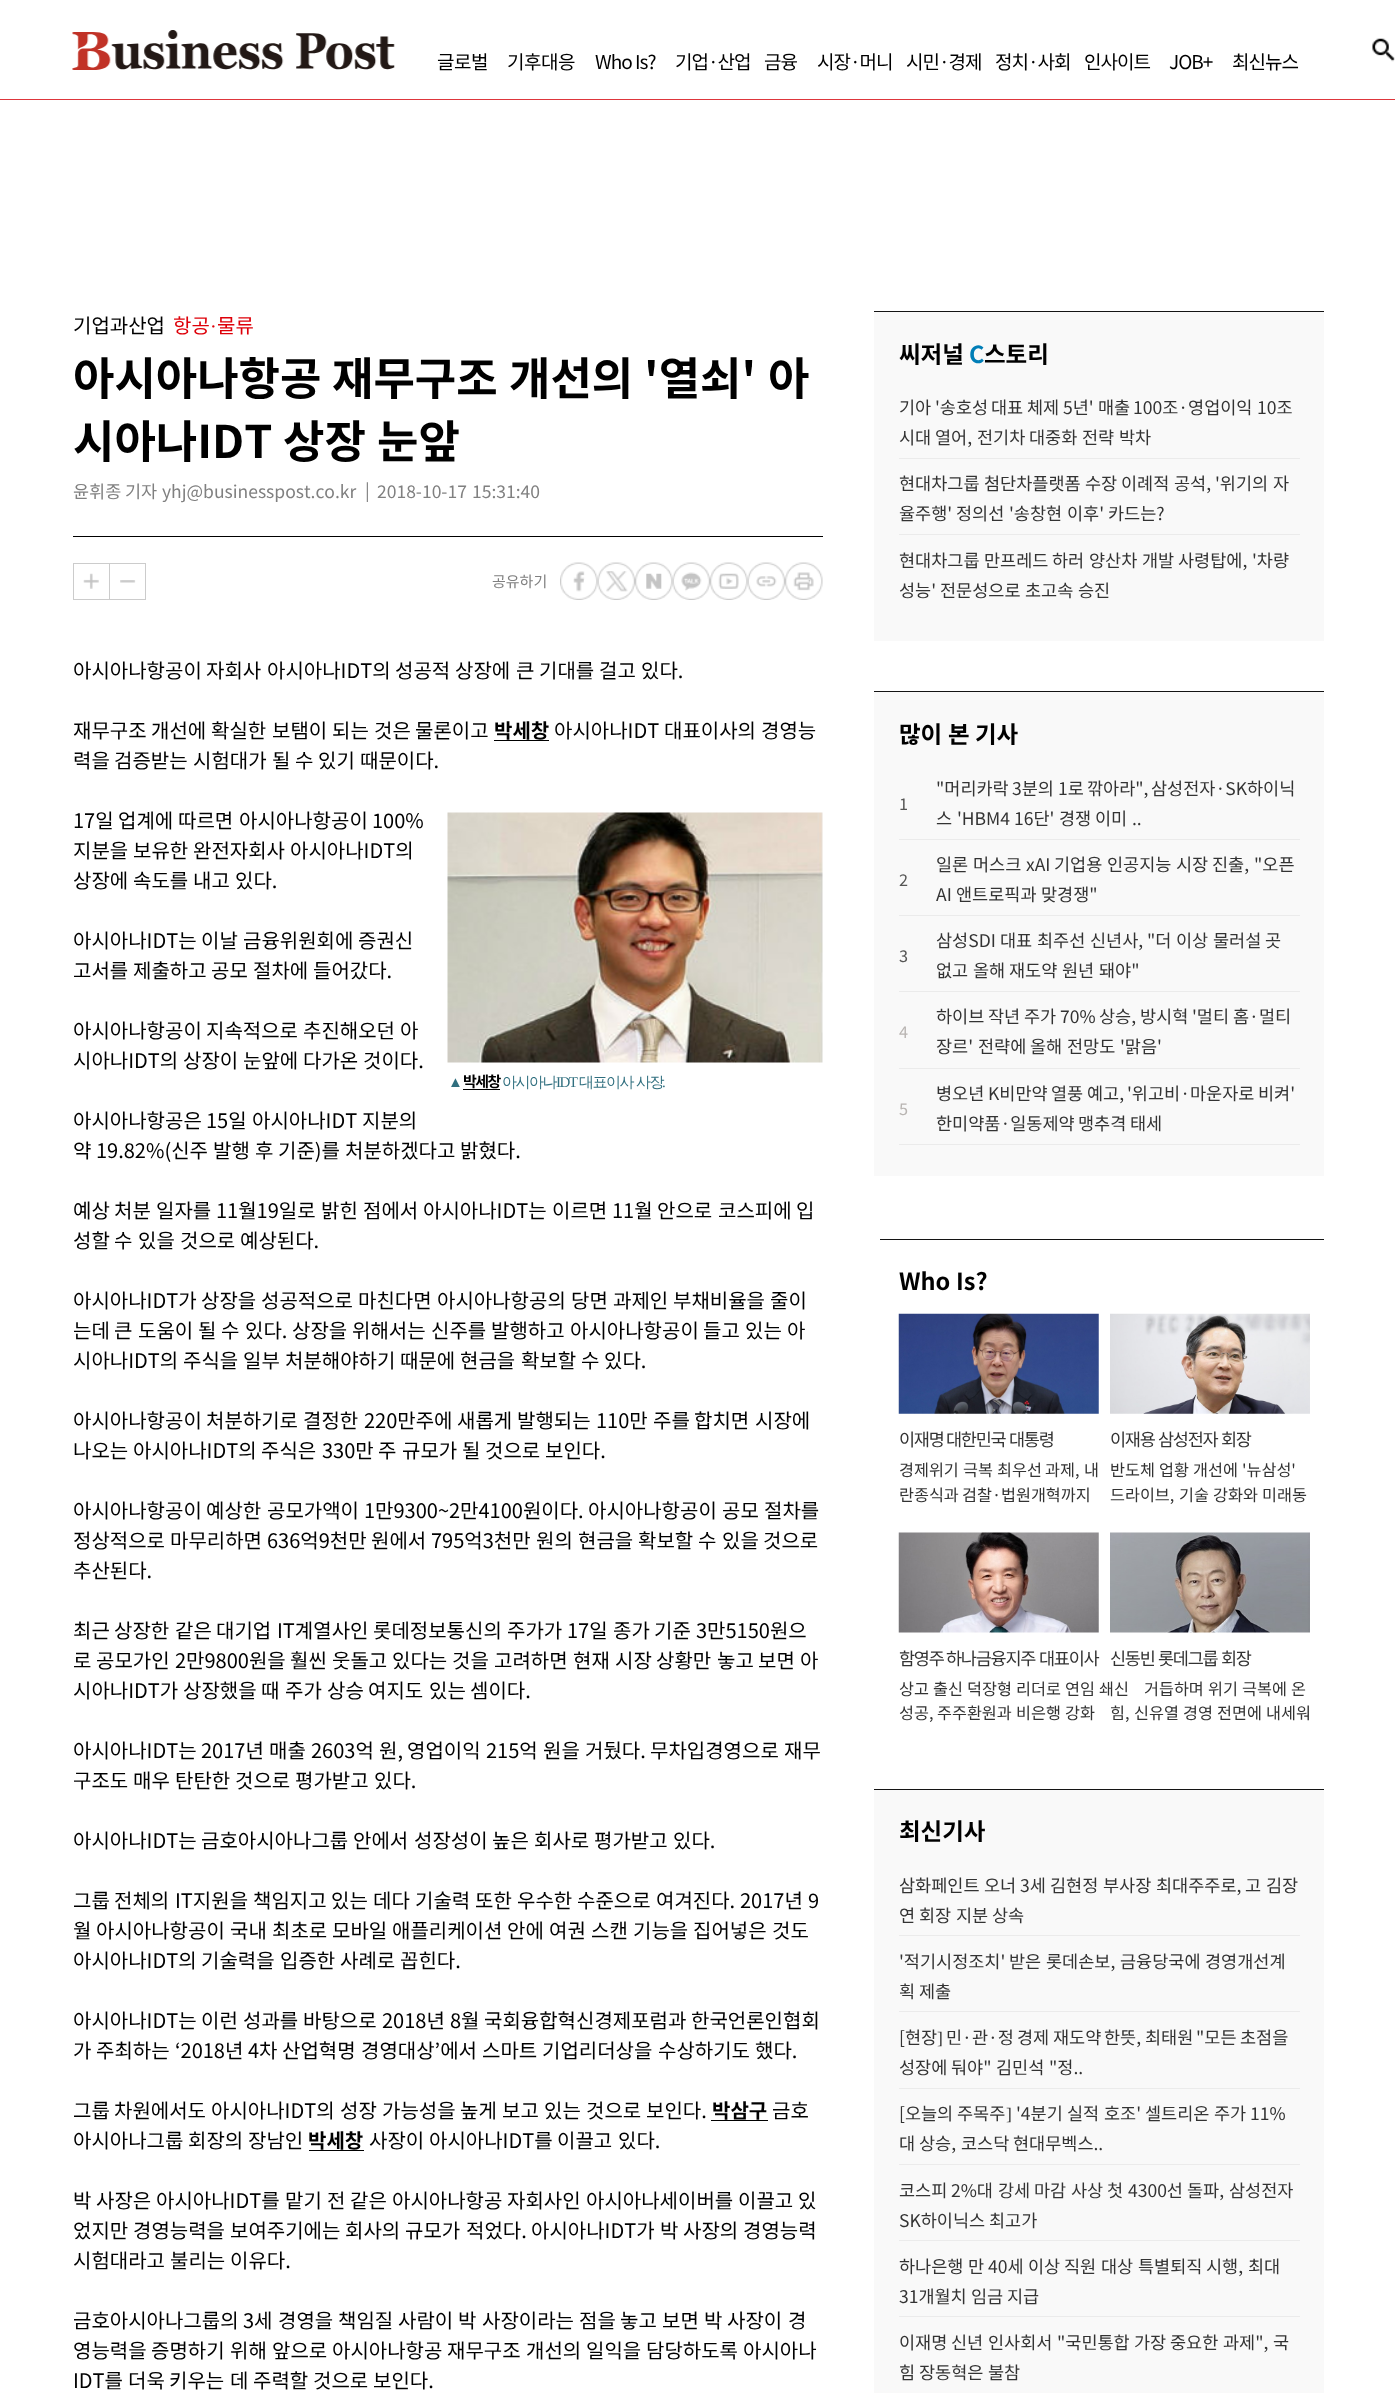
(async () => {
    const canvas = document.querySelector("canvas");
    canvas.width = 1395;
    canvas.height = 2393;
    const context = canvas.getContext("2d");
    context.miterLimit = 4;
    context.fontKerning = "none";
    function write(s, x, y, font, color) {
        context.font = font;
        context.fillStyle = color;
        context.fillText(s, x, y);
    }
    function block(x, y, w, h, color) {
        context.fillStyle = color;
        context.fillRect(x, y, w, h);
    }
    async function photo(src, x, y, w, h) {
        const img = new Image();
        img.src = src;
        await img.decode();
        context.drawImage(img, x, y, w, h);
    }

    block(0, 0, 1395, 2393, "rgb(255, 255, 255)");
    block(0, 99, 1395, 1, "rgb(222, 54, 60)");
    await photo("media/1.png", 72, 30, 323, 40);
    context.letterSpacing = "-0.5px";
    write("글로벌", 437, 69, "19px Noto Sans KR", "rgb(0, 0, 0)");
    write("기후대응", 507, 69, "19px Noto Sans KR", "rgb(0, 0, 0)");
    context.letterSpacing = "-1px";
    write("Who", 595, 69, "19px Noto Sans KR", "rgb(0, 0, 0)");
    write("Is?", 635, 69, "19px Noto Sans KR", "rgb(0, 0, 0)");
    write("기업·산업", 675, 69, "19px Noto Sans KR", "rgb(0, 0, 0)");
    write("금융", 764, 69, "19px Noto Sans KR", "rgb(0, 0, 0)");
    write("시장·머니", 817, 69, "19px Noto Sans KR", "rgb(0, 0, 0)");
    write("시민·경제", 906, 69, "19px Noto Sans KR", "rgb(0, 0, 0)");
    write("정치·사회", 995, 69, "19px Noto Sans KR", "rgb(0, 0, 0)");
    write("인사이트", 1084, 69, "19px Noto Sans KR", "rgb(0, 0, 0)");
    write("JOB+", 1169, 69, "19px Noto Sans KR", "rgb(0, 0, 0)");
    write("최신뉴스", 1232, 69, "19px Noto Sans KR", "rgb(0, 0, 0)");
    await photo("media/2.png", 1372, 38, 23, 24);
    context.letterSpacing = "0px";
    write("기업과산업", 73, 333, "20px Noto Sans KR", "rgb(0, 0, 0)");
    write("항공", 173, 333, "20px Noto Sans KR", "rgb(222, 0, 9)");
    write("·", 210, 333, "20px Liberation Serif", "rgb(222, 0, 9)");
    write("물류", 217, 333, "20px Noto Sans KR", "rgb(222, 0, 9)");
    write("아시아나항공", 73, 395, "bold 45px Noto Sans KR", "rgb(0, 0, 0)");
    write("재무구조", 332, 395, "bold 45px Noto Sans KR", "rgb(0, 0, 0)");
    write("개선의", 509, 395, "bold 45px Noto Sans KR", "rgb(0, 0, 0)");
    write("'열쇠'", 644, 395, "bold 45px Noto Sans KR", "rgb(0, 0, 0)");
    write("아", 768, 395, "bold 45px Noto Sans KR", "rgb(0, 0, 0)");
    write("시아나IDT", 73, 458, "bold 45px Noto Sans KR", "rgb(0, 0, 0)");
    write("상장", 283, 458, "bold 45px Noto Sans KR", "rgb(0, 0, 0)");
    write("눈앞", 377, 458, "bold 45px Noto Sans KR", "rgb(0, 0, 0)");
    write("윤휘종", 73, 498, "17.5px Noto Sans KR", "rgb(128, 128, 128)");
    write("기자", 125, 498, "17.5px Noto Sans KR", "rgb(128, 128, 128)");
    write("yhj@businesspost.co.kr", 162, 498, "17.5px Noto Sans KR", "rgb(128, 128, 128)");
    write("|", 365, 497, "17.5px Noto Sans KR", "rgb(128, 128, 128)");
    write("2018-10-17", 377, 498, "17.5px Noto Sans KR", "rgb(128, 128, 128)");
    write("15:31:40", 472, 498, "17.5px Noto Sans KR", "rgb(128, 128, 128)");
    block(73, 536, 750, 1, "rgb(0, 0, 0)");
    await photo("media/3.png", 83, 573, 16, 16);
    context.strokeStyle = "rgb(204, 204, 204)";
    context.strokeRect(73.5, 563.5, 36, 36);
    await photo("media/4.png", 120, 580, 16, 3);
    context.strokeRect(109.5, 563.5, 36, 36);
    write("공유하기", 492, 587, "15px Noto Sans KR", "rgb(128, 128, 128)");
    await photo("media/5.png", 560, 562, 38, 38);
    await photo("media/6.png", 597, 562, 38, 38);
    await photo("media/7.png", 635, 562, 38, 38);
    await photo("media/8.png", 672, 562, 38, 38);
    await photo("media/9.png", 710, 562, 38, 38);
    await photo("media/10.png", 747, 562, 38, 38);
    await photo("media/11.png", 785, 562, 38, 38);
    write("아시아나항공이", 73, 678, "20px Noto Sans KR", "rgb(0, 0, 0)");
    write("자회사", 206, 678, "20px Noto Sans KR", "rgb(0, 0, 0)");
    write("아시아나IDT의", 267, 678, "20px Noto Sans KR", "rgb(0, 0, 0)");
    write("성공적", 395, 678, "20px Noto Sans KR", "rgb(0, 0, 0)");
    write("상장에", 455, 678, "20px Noto Sans KR", "rgb(0, 0, 0)");
    write("큰", 516, 678, "20px Noto Sans KR", "rgb(0, 0, 0)");
    write("기대를", 539, 678, "20px Noto Sans KR", "rgb(0, 0, 0)");
    write("걸고", 599, 678, "20px Noto Sans KR", "rgb(0, 0, 0)");
    write("있다.", 641, 678, "20px Noto Sans KR", "rgb(0, 0, 0)");
    write("재무구조", 73, 738, "20px Noto Sans KR", "rgb(0, 0, 0)");
    write("개선에", 151, 738, "20px Noto Sans KR", "rgb(0, 0, 0)");
    write("확실한", 211, 738, "20px Noto Sans KR", "rgb(0, 0, 0)");
    write("보탬이", 272, 738, "20px Noto Sans KR", "rgb(0, 0, 0)");
    write("되는", 332, 738, "20px Noto Sans KR", "rgb(0, 0, 0)");
    write("것은", 374, 738, "20px Noto Sans KR", "rgb(0, 0, 0)");
    write("물론이고", 415, 738, "20px Noto Sans KR", "rgb(0, 0, 0)");
    write("박세창", 494, 738, "bold 20px Noto Sans KR", "rgb(0, 0, 0)");
    block(494, 740, 55, 1, "rgb(0, 0, 0)");
    write("아시아나IDT", 554, 738, "20px Noto Sans KR", "rgb(0, 0, 0)");
    write("대표이사의", 664, 738, "20px Noto Sans KR", "rgb(0, 0, 0)");
    write("경영능", 761, 738, "20px Noto Sans KR", "rgb(0, 0, 0)");
    write("력을", 73, 768, "20px Noto Sans KR", "rgb(0, 0, 0)");
    write("검증받는", 114, 768, "20px Noto Sans KR", "rgb(0, 0, 0)");
    write("시험대가", 193, 768, "20px Noto Sans KR", "rgb(0, 0, 0)");
    write("될", 272, 768, "20px Noto Sans KR", "rgb(0, 0, 0)");
    write("수", 295, 768, "20px Noto Sans KR", "rgb(0, 0, 0)");
    write("있기", 318, 768, "20px Noto Sans KR", "rgb(0, 0, 0)");
    write("때문이다.", 360, 768, "20px Noto Sans KR", "rgb(0, 0, 0)");
    write("17일", 73, 828, "20px Noto Sans KR", "rgb(0, 0, 0)");
    write("업계에", 118, 828, "20px Noto Sans KR", "rgb(0, 0, 0)");
    write("따르면", 178, 828, "20px Noto Sans KR", "rgb(0, 0, 0)");
    write("아시아나항공이", 239, 828, "20px Noto Sans KR", "rgb(0, 0, 0)");
    write("100%", 372, 828, "20px Noto Sans KR", "rgb(0, 0, 0)");
    write("지분을", 73, 858, "20px Noto Sans KR", "rgb(0, 0, 0)");
    write("보유한", 133, 858, "20px Noto Sans KR", "rgb(0, 0, 0)");
    write("완전자회사", 193, 858, "20px Noto Sans KR", "rgb(0, 0, 0)");
    write("아시아나IDT의", 290, 858, "20px Noto Sans KR", "rgb(0, 0, 0)");
    write("상장에", 73, 888, "20px Noto Sans KR", "rgb(0, 0, 0)");
    write("속도를", 133, 888, "20px Noto Sans KR", "rgb(0, 0, 0)");
    write("내고", 193, 888, "20px Noto Sans KR", "rgb(0, 0, 0)");
    write("있다.", 235, 888, "20px Noto Sans KR", "rgb(0, 0, 0)");
    write("아시아나IDT는", 73, 948, "20px Noto Sans KR", "rgb(0, 0, 0)");
    write("이날", 201, 948, "20px Noto Sans KR", "rgb(0, 0, 0)");
    write("금융위원회에", 243, 948, "20px Noto Sans KR", "rgb(0, 0, 0)");
    write("증권신", 358, 948, "20px Noto Sans KR", "rgb(0, 0, 0)");
    write("고서를", 73, 978, "20px Noto Sans KR", "rgb(0, 0, 0)");
    write("제출하고", 133, 978, "20px Noto Sans KR", "rgb(0, 0, 0)");
    write("공모", 211, 978, "20px Noto Sans KR", "rgb(0, 0, 0)");
    write("절차에", 253, 978, "20px Noto Sans KR", "rgb(0, 0, 0)");
    write("들어갔다.", 313, 978, "20px Noto Sans KR", "rgb(0, 0, 0)");
    write("아시아나항공이", 73, 1038, "20px Noto Sans KR", "rgb(0, 0, 0)");
    write("지속적으로", 206, 1038, "20px Noto Sans KR", "rgb(0, 0, 0)");
    write("추진해오던", 303, 1038, "20px Noto Sans KR", "rgb(0, 0, 0)");
    write("아", 400, 1038, "20px Noto Sans KR", "rgb(0, 0, 0)");
    write("시아나IDT의", 73, 1068, "20px Noto Sans KR", "rgb(0, 0, 0)");
    write("상장이", 183, 1068, "20px Noto Sans KR", "rgb(0, 0, 0)");
    write("눈앞에", 243, 1068, "20px Noto Sans KR", "rgb(0, 0, 0)");
    write("다가온", 303, 1068, "20px Noto Sans KR", "rgb(0, 0, 0)");
    write("것이다.", 363, 1068, "20px Noto Sans KR", "rgb(0, 0, 0)");
    await photo("media/12.png", 447, 812, 376, 251);
    context.letterSpacing = "-1.5px";
    write("▲", 448, 1087, "15px Liberation Serif", "rgb(48, 111, 127)");
    write("박세창", 463, 1087, "bold 15px Noto Sans KR", "rgb(0, 0, 0)");
    block(463, 1089, 37, 1, "rgb(0, 0, 0)");
    write("아시아나", 502, 1087, "500 15px WenQuanYi Zen Hei", "rgb(48, 111, 127)");
    write("IDT", 556, 1087, "15px Liberation Serif", "rgb(48, 111, 127)");
    write("대표이사 사장", 579, 1087, "500 15px WenQuanYi Zen Hei", "rgb(48, 111, 127)");
    write(".", 662, 1087, "15px Liberation Serif", "rgb(48, 111, 127)");
    context.letterSpacing = "0px";
    write("아시아나항공은", 73, 1128, "20px Noto Sans KR", "rgb(0, 0, 0)");
    write("15일", 206, 1128, "20px Noto Sans KR", "rgb(0, 0, 0)");
    write("아시아나IDT", 252, 1128, "20px Noto Sans KR", "rgb(0, 0, 0)");
    write("지분의", 362, 1128, "20px Noto Sans KR", "rgb(0, 0, 0)");
    write("약", 73, 1158, "20px Noto Sans KR", "rgb(0, 0, 0)");
    write("19.82%(신주", 96, 1158, "20px Noto Sans KR", "rgb(0, 0, 0)");
    write("발행", 213, 1158, "20px Noto Sans KR", "rgb(0, 0, 0)");
    write("후", 255, 1158, "20px Noto Sans KR", "rgb(0, 0, 0)");
    write("기준)를", 278, 1158, "20px Noto Sans KR", "rgb(0, 0, 0)");
    write("처분하겠다고", 345, 1158, "20px Noto Sans KR", "rgb(0, 0, 0)");
    write("밝혔다.", 460, 1158, "20px Noto Sans KR", "rgb(0, 0, 0)");
    write("예상", 73, 1218, "20px Noto Sans KR", "rgb(0, 0, 0)");
    write("처분", 114, 1218, "20px Noto Sans KR", "rgb(0, 0, 0)");
    write("일자를", 156, 1218, "20px Noto Sans KR", "rgb(0, 0, 0)");
    write("11월19일로", 216, 1218, "20px Noto Sans KR", "rgb(0, 0, 0)");
    write("밝힌", 321, 1218, "20px Noto Sans KR", "rgb(0, 0, 0)");
    write("점에서", 363, 1218, "20px Noto Sans KR", "rgb(0, 0, 0)");
    write("아시아나IDT는", 423, 1218, "20px Noto Sans KR", "rgb(0, 0, 0)");
    write("이르면", 552, 1218, "20px Noto Sans KR", "rgb(0, 0, 0)");
    write("11월", 612, 1218, "20px Noto Sans KR", "rgb(0, 0, 0)");
    write("안으로", 657, 1218, "20px Noto Sans KR", "rgb(0, 0, 0)");
    write("코스피에", 718, 1218, "20px Noto Sans KR", "rgb(0, 0, 0)");
    write("입", 796, 1218, "20px Noto Sans KR", "rgb(0, 0, 0)");
    write("성할", 73, 1248, "20px Noto Sans KR", "rgb(0, 0, 0)");
    write("수", 114, 1248, "20px Noto Sans KR", "rgb(0, 0, 0)");
    write("있을", 138, 1248, "20px Noto Sans KR", "rgb(0, 0, 0)");
    write("것으로", 180, 1248, "20px Noto Sans KR", "rgb(0, 0, 0)");
    write("예상된다.", 240, 1248, "20px Noto Sans KR", "rgb(0, 0, 0)");
    write("아시아나IDT가", 73, 1308, "20px Noto Sans KR", "rgb(0, 0, 0)");
    write("상장을", 201, 1308, "20px Noto Sans KR", "rgb(0, 0, 0)");
    write("성공적으로", 261, 1308, "20px Noto Sans KR", "rgb(0, 0, 0)");
    write("마친다면", 358, 1308, "20px Noto Sans KR", "rgb(0, 0, 0)");
    write("아시아나항공의", 437, 1308, "20px Noto Sans KR", "rgb(0, 0, 0)");
    write("당면", 571, 1308, "20px Noto Sans KR", "rgb(0, 0, 0)");
    write("과제인", 613, 1308, "20px Noto Sans KR", "rgb(0, 0, 0)");
    write("부채비율을", 673, 1308, "20px Noto Sans KR", "rgb(0, 0, 0)");
    write("줄이", 770, 1308, "20px Noto Sans KR", "rgb(0, 0, 0)");
    write("는데", 73, 1338, "20px Noto Sans KR", "rgb(0, 0, 0)");
    write("큰", 114, 1338, "20px Noto Sans KR", "rgb(0, 0, 0)");
    write("도움이", 138, 1338, "20px Noto Sans KR", "rgb(0, 0, 0)");
    write("될", 198, 1338, "20px Noto Sans KR", "rgb(0, 0, 0)");
    write("수", 221, 1338, "20px Noto Sans KR", "rgb(0, 0, 0)");
    write("있다.", 245, 1338, "20px Noto Sans KR", "rgb(0, 0, 0)");
    write("상장을", 292, 1338, "20px Noto Sans KR", "rgb(0, 0, 0)");
    write("위해서는", 352, 1338, "20px Noto Sans KR", "rgb(0, 0, 0)");
    write("신주를", 431, 1338, "20px Noto Sans KR", "rgb(0, 0, 0)");
    write("발행하고", 491, 1338, "20px Noto Sans KR", "rgb(0, 0, 0)");
    write("아시아나항공이", 570, 1338, "20px Noto Sans KR", "rgb(0, 0, 0)");
    write("들고", 703, 1338, "20px Noto Sans KR", "rgb(0, 0, 0)");
    write("있는", 745, 1338, "20px Noto Sans KR", "rgb(0, 0, 0)");
    write("아", 787, 1338, "20px Noto Sans KR", "rgb(0, 0, 0)");
    write("시아나IDT의", 73, 1368, "20px Noto Sans KR", "rgb(0, 0, 0)");
    write("주식을", 183, 1368, "20px Noto Sans KR", "rgb(0, 0, 0)");
    write("일부", 243, 1368, "20px Noto Sans KR", "rgb(0, 0, 0)");
    write("처분해야하기", 285, 1368, "20px Noto Sans KR", "rgb(0, 0, 0)");
    write("때문에", 400, 1368, "20px Noto Sans KR", "rgb(0, 0, 0)");
    write("현금을", 460, 1368, "20px Noto Sans KR", "rgb(0, 0, 0)");
    write("확보할", 521, 1368, "20px Noto Sans KR", "rgb(0, 0, 0)");
    write("수", 581, 1368, "20px Noto Sans KR", "rgb(0, 0, 0)");
    write("있다.", 604, 1368, "20px Noto Sans KR", "rgb(0, 0, 0)");
    write("아시아나항공이", 73, 1428, "20px Noto Sans KR", "rgb(0, 0, 0)");
    write("처분하기로", 206, 1428, "20px Noto Sans KR", "rgb(0, 0, 0)");
    write("결정한", 303, 1428, "20px Noto Sans KR", "rgb(0, 0, 0)");
    write("220만주에", 364, 1428, "20px Noto Sans KR", "rgb(0, 0, 0)");
    write("새롭게", 457, 1428, "20px Noto Sans KR", "rgb(0, 0, 0)");
    write("발행되는", 517, 1428, "20px Noto Sans KR", "rgb(0, 0, 0)");
    write("110만", 596, 1428, "20px Noto Sans KR", "rgb(0, 0, 0)");
    write("주를", 653, 1428, "20px Noto Sans KR", "rgb(0, 0, 0)");
    write("합치면", 694, 1428, "20px Noto Sans KR", "rgb(0, 0, 0)");
    write("시장에", 755, 1428, "20px Noto Sans KR", "rgb(0, 0, 0)");
    write("나오는", 73, 1458, "20px Noto Sans KR", "rgb(0, 0, 0)");
    write("아시아나IDT의", 133, 1458, "20px Noto Sans KR", "rgb(0, 0, 0)");
    write("주식은", 261, 1458, "20px Noto Sans KR", "rgb(0, 0, 0)");
    write("330만", 322, 1458, "20px Noto Sans KR", "rgb(0, 0, 0)");
    write("주", 378, 1458, "20px Noto Sans KR", "rgb(0, 0, 0)");
    write("규모가", 402, 1458, "20px Noto Sans KR", "rgb(0, 0, 0)");
    write("될", 462, 1458, "20px Noto Sans KR", "rgb(0, 0, 0)");
    write("것으로", 485, 1458, "20px Noto Sans KR", "rgb(0, 0, 0)");
    write("보인다.", 545, 1458, "20px Noto Sans KR", "rgb(0, 0, 0)");
    write("아시아나항공이", 73, 1518, "20px Noto Sans KR", "rgb(0, 0, 0)");
    write("예상한", 206, 1518, "20px Noto Sans KR", "rgb(0, 0, 0)");
    write("공모가액이", 267, 1518, "20px Noto Sans KR", "rgb(0, 0, 0)");
    write("1만9300~2만4100원이다.", 364, 1518, "20px Noto Sans KR", "rgb(0, 0, 0)");
    write("아시아나항공이", 588, 1518, "20px Noto Sans KR", "rgb(0, 0, 0)");
    write("공모", 722, 1518, "20px Noto Sans KR", "rgb(0, 0, 0)");
    write("절차를", 764, 1518, "20px Noto Sans KR", "rgb(0, 0, 0)");
    write("정상적으로", 73, 1548, "20px Noto Sans KR", "rgb(0, 0, 0)");
    write("마무리하면", 170, 1548, "20px Noto Sans KR", "rgb(0, 0, 0)");
    write("636억9천만", 267, 1548, "20px Noto Sans KR", "rgb(0, 0, 0)");
    write("원에서", 371, 1548, "20px Noto Sans KR", "rgb(0, 0, 0)");
    write("795억3천만", 431, 1548, "20px Noto Sans KR", "rgb(0, 0, 0)");
    write("원의", 536, 1548, "20px Noto Sans KR", "rgb(0, 0, 0)");
    write("현금을", 578, 1548, "20px Noto Sans KR", "rgb(0, 0, 0)");
    write("확보할", 638, 1548, "20px Noto Sans KR", "rgb(0, 0, 0)");
    write("수", 698, 1548, "20px Noto Sans KR", "rgb(0, 0, 0)");
    write("있을", 722, 1548, "20px Noto Sans KR", "rgb(0, 0, 0)");
    write("것으로", 763, 1548, "20px Noto Sans KR", "rgb(0, 0, 0)");
    write("추산된다.", 73, 1578, "20px Noto Sans KR", "rgb(0, 0, 0)");
    write("최근", 73, 1638, "20px Noto Sans KR", "rgb(0, 0, 0)");
    write("상장한", 114, 1638, "20px Noto Sans KR", "rgb(0, 0, 0)");
    write("같은", 175, 1638, "20px Noto Sans KR", "rgb(0, 0, 0)");
    write("대기업", 216, 1638, "20px Noto Sans KR", "rgb(0, 0, 0)");
    write("IT계열사인", 277, 1638, "20px Noto Sans KR", "rgb(0, 0, 0)");
    write("롯데정보통신의", 373, 1638, "20px Noto Sans KR", "rgb(0, 0, 0)");
    write("주가가", 507, 1638, "20px Noto Sans KR", "rgb(0, 0, 0)");
    write("17일", 567, 1638, "20px Noto Sans KR", "rgb(0, 0, 0)");
    write("종가", 613, 1638, "20px Noto Sans KR", "rgb(0, 0, 0)");
    write("기준", 654, 1638, "20px Noto Sans KR", "rgb(0, 0, 0)");
    write("3만5150원으", 696, 1638, "20px Noto Sans KR", "rgb(0, 0, 0)");
    write("로", 73, 1668, "20px Noto Sans KR", "rgb(0, 0, 0)");
    write("공모가인", 96, 1668, "20px Noto Sans KR", "rgb(0, 0, 0)");
    write("2만9800원을", 175, 1668, "20px Noto Sans KR", "rgb(0, 0, 0)");
    write("훨씬", 290, 1668, "20px Noto Sans KR", "rgb(0, 0, 0)");
    write("웃돌고", 332, 1668, "20px Noto Sans KR", "rgb(0, 0, 0)");
    write("있다는", 392, 1668, "20px Noto Sans KR", "rgb(0, 0, 0)");
    write("것을", 452, 1668, "20px Noto Sans KR", "rgb(0, 0, 0)");
    write("고려하면", 494, 1668, "20px Noto Sans KR", "rgb(0, 0, 0)");
    write("현재", 573, 1668, "20px Noto Sans KR", "rgb(0, 0, 0)");
    write("시장", 615, 1668, "20px Noto Sans KR", "rgb(0, 0, 0)");
    write("상황만", 656, 1668, "20px Noto Sans KR", "rgb(0, 0, 0)");
    write("놓고", 717, 1668, "20px Noto Sans KR", "rgb(0, 0, 0)");
    write("보면", 758, 1668, "20px Noto Sans KR", "rgb(0, 0, 0)");
    write("아", 800, 1668, "20px Noto Sans KR", "rgb(0, 0, 0)");
    write("시아나IDT가", 73, 1698, "20px Noto Sans KR", "rgb(0, 0, 0)");
    write("상장했을", 183, 1698, "20px Noto Sans KR", "rgb(0, 0, 0)");
    write("때", 261, 1698, "20px Noto Sans KR", "rgb(0, 0, 0)");
    write("주가", 285, 1698, "20px Noto Sans KR", "rgb(0, 0, 0)");
    write("상승", 327, 1698, "20px Noto Sans KR", "rgb(0, 0, 0)");
    write("여지도", 368, 1698, "20px Noto Sans KR", "rgb(0, 0, 0)");
    write("있는", 429, 1698, "20px Noto Sans KR", "rgb(0, 0, 0)");
    write("셈이다.", 470, 1698, "20px Noto Sans KR", "rgb(0, 0, 0)");
    write("아시아나IDT는", 73, 1758, "20px Noto Sans KR", "rgb(0, 0, 0)");
    write("2017년", 201, 1758, "20px Noto Sans KR", "rgb(0, 0, 0)");
    write("매출", 269, 1758, "20px Noto Sans KR", "rgb(0, 0, 0)");
    write("2603억", 311, 1758, "20px Noto Sans KR", "rgb(0, 0, 0)");
    write("원,", 379, 1758, "20px Noto Sans KR", "rgb(0, 0, 0)");
    write("영업이익", 407, 1758, "20px Noto Sans KR", "rgb(0, 0, 0)");
    write("215억", 486, 1758, "20px Noto Sans KR", "rgb(0, 0, 0)");
    write("원을", 543, 1758, "20px Noto Sans KR", "rgb(0, 0, 0)");
    write("거뒀다.", 585, 1758, "20px Noto Sans KR", "rgb(0, 0, 0)");
    write("무차입경영으로", 650, 1758, "20px Noto Sans KR", "rgb(0, 0, 0)");
    write("재무", 784, 1758, "20px Noto Sans KR", "rgb(0, 0, 0)");
    write("구조도", 73, 1788, "20px Noto Sans KR", "rgb(0, 0, 0)");
    write("매우", 133, 1788, "20px Noto Sans KR", "rgb(0, 0, 0)");
    write("탄탄한", 175, 1788, "20px Noto Sans KR", "rgb(0, 0, 0)");
    write("것으로", 235, 1788, "20px Noto Sans KR", "rgb(0, 0, 0)");
    write("평가받고", 295, 1788, "20px Noto Sans KR", "rgb(0, 0, 0)");
    write("있다.", 374, 1788, "20px Noto Sans KR", "rgb(0, 0, 0)");
    write("아시아나IDT는", 73, 1848, "20px Noto Sans KR", "rgb(0, 0, 0)");
    write("금호아시아나그룹", 201, 1848, "20px Noto Sans KR", "rgb(0, 0, 0)");
    write("안에서", 353, 1848, "20px Noto Sans KR", "rgb(0, 0, 0)");
    write("성장성이", 414, 1848, "20px Noto Sans KR", "rgb(0, 0, 0)");
    write("높은", 492, 1848, "20px Noto Sans KR", "rgb(0, 0, 0)");
    write("회사로", 534, 1848, "20px Noto Sans KR", "rgb(0, 0, 0)");
    write("평가받고", 594, 1848, "20px Noto Sans KR", "rgb(0, 0, 0)");
    write("있다.", 673, 1848, "20px Noto Sans KR", "rgb(0, 0, 0)");
    write("그룹", 73, 1908, "20px Noto Sans KR", "rgb(0, 0, 0)");
    write("전체의", 114, 1908, "20px Noto Sans KR", "rgb(0, 0, 0)");
    write("IT지원을", 175, 1908, "20px Noto Sans KR", "rgb(0, 0, 0)");
    write("책임지고", 253, 1908, "20px Noto Sans KR", "rgb(0, 0, 0)");
    write("있는", 331, 1908, "20px Noto Sans KR", "rgb(0, 0, 0)");
    write("데다", 373, 1908, "20px Noto Sans KR", "rgb(0, 0, 0)");
    write("기술력", 415, 1908, "20px Noto Sans KR", "rgb(0, 0, 0)");
    write("또한", 475, 1908, "20px Noto Sans KR", "rgb(0, 0, 0)");
    write("우수한", 517, 1908, "20px Noto Sans KR", "rgb(0, 0, 0)");
    write("수준으로", 577, 1908, "20px Noto Sans KR", "rgb(0, 0, 0)");
    write("여겨진다.", 656, 1908, "20px Noto Sans KR", "rgb(0, 0, 0)");
    write("2017년", 740, 1908, "20px Noto Sans KR", "rgb(0, 0, 0)");
    write("9", 808, 1908, "20px Noto Sans KR", "rgb(0, 0, 0)");
    write("월", 73, 1938, "20px Noto Sans KR", "rgb(0, 0, 0)");
    write("아시아나항공이", 96, 1938, "20px Noto Sans KR", "rgb(0, 0, 0)");
    write("국내", 230, 1938, "20px Noto Sans KR", "rgb(0, 0, 0)");
    write("최초로", 272, 1938, "20px Noto Sans KR", "rgb(0, 0, 0)");
    write("모바일", 332, 1938, "20px Noto Sans KR", "rgb(0, 0, 0)");
    write("애플리케이션", 392, 1938, "20px Noto Sans KR", "rgb(0, 0, 0)");
    write("안에", 507, 1938, "20px Noto Sans KR", "rgb(0, 0, 0)");
    write("여권", 549, 1938, "20px Noto Sans KR", "rgb(0, 0, 0)");
    write("스캔", 591, 1938, "20px Noto Sans KR", "rgb(0, 0, 0)");
    write("기능을", 633, 1938, "20px Noto Sans KR", "rgb(0, 0, 0)");
    write("집어넣은", 693, 1938, "20px Noto Sans KR", "rgb(0, 0, 0)");
    write("것도", 772, 1938, "20px Noto Sans KR", "rgb(0, 0, 0)");
    write("아시아나IDT의", 73, 1968, "20px Noto Sans KR", "rgb(0, 0, 0)");
    write("기술력을", 201, 1968, "20px Noto Sans KR", "rgb(0, 0, 0)");
    write("입증한", 280, 1968, "20px Noto Sans KR", "rgb(0, 0, 0)");
    write("사례로", 340, 1968, "20px Noto Sans KR", "rgb(0, 0, 0)");
    write("꼽힌다.", 400, 1968, "20px Noto Sans KR", "rgb(0, 0, 0)");
    write("아시아나IDT는", 73, 2028, "20px Noto Sans KR", "rgb(0, 0, 0)");
    write("이런", 201, 2028, "20px Noto Sans KR", "rgb(0, 0, 0)");
    write("성과를", 243, 2028, "20px Noto Sans KR", "rgb(0, 0, 0)");
    write("바탕으로", 303, 2028, "20px Noto Sans KR", "rgb(0, 0, 0)");
    write("2018년", 382, 2028, "20px Noto Sans KR", "rgb(0, 0, 0)");
    write("8월", 450, 2028, "20px Noto Sans KR", "rgb(0, 0, 0)");
    write("국회융합혁신경제포럼과", 484, 2028, "20px Noto Sans KR", "rgb(0, 0, 0)");
    write("한국언론인협회", 691, 2028, "20px Noto Sans KR", "rgb(0, 0, 0)");
    write("가", 73, 2058, "20px Noto Sans KR", "rgb(0, 0, 0)");
    write("주최하는", 96, 2058, "20px Noto Sans KR", "rgb(0, 0, 0)");
    write("‘2018년", 175, 2058, "20px Noto Sans KR", "rgb(0, 0, 0)");
    write("4차", 248, 2058, "20px Noto Sans KR", "rgb(0, 0, 0)");
    write("산업혁명", 282, 2058, "20px Noto Sans KR", "rgb(0, 0, 0)");
    write("경영대상’에서", 361, 2058, "20px Noto Sans KR", "rgb(0, 0, 0)");
    write("스마트", 482, 2058, "20px Noto Sans KR", "rgb(0, 0, 0)");
    write("기업리더상을", 542, 2058, "20px Noto Sans KR", "rgb(0, 0, 0)");
    write("수상하기도", 658, 2058, "20px Noto Sans KR", "rgb(0, 0, 0)");
    write("했다.", 755, 2058, "20px Noto Sans KR", "rgb(0, 0, 0)");
    write("그룹", 73, 2118, "20px Noto Sans KR", "rgb(0, 0, 0)");
    write("차원에서도", 114, 2118, "20px Noto Sans KR", "rgb(0, 0, 0)");
    write("아시아나IDT의", 211, 2118, "20px Noto Sans KR", "rgb(0, 0, 0)");
    write("성장", 340, 2118, "20px Noto Sans KR", "rgb(0, 0, 0)");
    write("가능성을", 382, 2118, "20px Noto Sans KR", "rgb(0, 0, 0)");
    write("높게", 460, 2118, "20px Noto Sans KR", "rgb(0, 0, 0)");
    write("보고", 502, 2118, "20px Noto Sans KR", "rgb(0, 0, 0)");
    write("있는", 544, 2118, "20px Noto Sans KR", "rgb(0, 0, 0)");
    write("것으로", 586, 2118, "20px Noto Sans KR", "rgb(0, 0, 0)");
    write("보인다.", 646, 2118, "20px Noto Sans KR", "rgb(0, 0, 0)");
    write("박삼구", 712, 2118, "bold 20px Noto Sans KR", "rgb(0, 0, 0)");
    block(711, 2120, 57, 1, "rgb(0, 0, 0)");
    write("금호", 772, 2118, "20px Noto Sans KR", "rgb(0, 0, 0)");
    write("아시아나그룹", 73, 2148, "20px Noto Sans KR", "rgb(0, 0, 0)");
    write("회장의", 188, 2148, "20px Noto Sans KR", "rgb(0, 0, 0)");
    write("장남인", 248, 2148, "20px Noto Sans KR", "rgb(0, 0, 0)");
    write("박세창", 308, 2148, "bold 20px Noto Sans KR", "rgb(0, 0, 0)");
    block(309, 2150, 55, 1, "rgb(0, 0, 0)");
    write("사장이", 369, 2148, "20px Noto Sans KR", "rgb(0, 0, 0)");
    write("아시아나IDT를", 429, 2148, "20px Noto Sans KR", "rgb(0, 0, 0)");
    write("이끌고", 557, 2148, "20px Noto Sans KR", "rgb(0, 0, 0)");
    write("있다.", 618, 2148, "20px Noto Sans KR", "rgb(0, 0, 0)");
    write("박", 73, 2208, "20px Noto Sans KR", "rgb(0, 0, 0)");
    write("사장은", 96, 2208, "20px Noto Sans KR", "rgb(0, 0, 0)");
    write("아시아나IDT를", 156, 2208, "20px Noto Sans KR", "rgb(0, 0, 0)");
    write("맡기", 285, 2208, "20px Noto Sans KR", "rgb(0, 0, 0)");
    write("전", 327, 2208, "20px Noto Sans KR", "rgb(0, 0, 0)");
    write("같은", 350, 2208, "20px Noto Sans KR", "rgb(0, 0, 0)");
    write("아시아나항공", 392, 2208, "20px Noto Sans KR", "rgb(0, 0, 0)");
    write("자회사인", 507, 2208, "20px Noto Sans KR", "rgb(0, 0, 0)");
    write("아시아나세이버를", 586, 2208, "20px Noto Sans KR", "rgb(0, 0, 0)");
    write("이끌고", 738, 2208, "20px Noto Sans KR", "rgb(0, 0, 0)");
    write("있", 798, 2208, "20px Noto Sans KR", "rgb(0, 0, 0)");
    write("었지만", 73, 2238, "20px Noto Sans KR", "rgb(0, 0, 0)");
    write("경영능력을", 133, 2238, "20px Noto Sans KR", "rgb(0, 0, 0)");
    write("보여주기에는", 230, 2238, "20px Noto Sans KR", "rgb(0, 0, 0)");
    write("회사의", 345, 2238, "20px Noto Sans KR", "rgb(0, 0, 0)");
    write("규모가", 405, 2238, "20px Noto Sans KR", "rgb(0, 0, 0)");
    write("적었다.", 466, 2238, "20px Noto Sans KR", "rgb(0, 0, 0)");
    write("아시아나IDT가", 531, 2238, "20px Noto Sans KR", "rgb(0, 0, 0)");
    write("박", 660, 2238, "20px Noto Sans KR", "rgb(0, 0, 0)");
    write("사장의", 683, 2238, "20px Noto Sans KR", "rgb(0, 0, 0)");
    write("경영능력", 743, 2238, "20px Noto Sans KR", "rgb(0, 0, 0)");
    write("시험대라고", 73, 2268, "20px Noto Sans KR", "rgb(0, 0, 0)");
    write("불리는", 170, 2268, "20px Noto Sans KR", "rgb(0, 0, 0)");
    write("이유다.", 230, 2268, "20px Noto Sans KR", "rgb(0, 0, 0)");
    write("금호아시아나그룹의", 73, 2328, "20px Noto Sans KR", "rgb(0, 0, 0)");
    write("3세", 243, 2328, "20px Noto Sans KR", "rgb(0, 0, 0)");
    write("경영을", 278, 2328, "20px Noto Sans KR", "rgb(0, 0, 0)");
    write("책임질", 338, 2328, "20px Noto Sans KR", "rgb(0, 0, 0)");
    write("사람이", 398, 2328, "20px Noto Sans KR", "rgb(0, 0, 0)");
    write("박", 458, 2328, "20px Noto Sans KR", "rgb(0, 0, 0)");
    write("사장이라는", 482, 2328, "20px Noto Sans KR", "rgb(0, 0, 0)");
    write("점을", 579, 2328, "20px Noto Sans KR", "rgb(0, 0, 0)");
    write("놓고", 620, 2328, "20px Noto Sans KR", "rgb(0, 0, 0)");
    write("보면", 662, 2328, "20px Noto Sans KR", "rgb(0, 0, 0)");
    write("박", 704, 2328, "20px Noto Sans KR", "rgb(0, 0, 0)");
    write("사장이", 727, 2328, "20px Noto Sans KR", "rgb(0, 0, 0)");
    write("경", 788, 2328, "20px Noto Sans KR", "rgb(0, 0, 0)");
    write("영능력을", 73, 2358, "20px Noto Sans KR", "rgb(0, 0, 0)");
    write("증명하기", 151, 2358, "20px Noto Sans KR", "rgb(0, 0, 0)");
    write("위해", 230, 2358, "20px Noto Sans KR", "rgb(0, 0, 0)");
    write("앞으로", 272, 2358, "20px Noto Sans KR", "rgb(0, 0, 0)");
    write("아시아나항공", 332, 2358, "20px Noto Sans KR", "rgb(0, 0, 0)");
    write("재무구조", 447, 2358, "20px Noto Sans KR", "rgb(0, 0, 0)");
    write("개선의", 526, 2358, "20px Noto Sans KR", "rgb(0, 0, 0)");
    write("일익을", 586, 2358, "20px Noto Sans KR", "rgb(0, 0, 0)");
    write("담당하도록", 646, 2358, "20px Noto Sans KR", "rgb(0, 0, 0)");
    write("아시아나", 743, 2358, "20px Noto Sans KR", "rgb(0, 0, 0)");
    write("IDT를", 73, 2388, "20px Noto Sans KR", "rgb(0, 0, 0)");
    write("더욱", 128, 2388, "20px Noto Sans KR", "rgb(0, 0, 0)");
    write("키우는", 169, 2388, "20px Noto Sans KR", "rgb(0, 0, 0)");
    write("데", 230, 2388, "20px Noto Sans KR", "rgb(0, 0, 0)");
    write("주력할", 253, 2388, "20px Noto Sans KR", "rgb(0, 0, 0)");
    write("것으로", 313, 2388, "20px Noto Sans KR", "rgb(0, 0, 0)");
    write("보인다.", 373, 2388, "20px Noto Sans KR", "rgb(0, 0, 0)");
    block(874, 312, 450, 329, "rgb(249, 249, 249)");
    block(874, 311, 450, 1, "rgb(20, 20, 20)");
    write("씨저널", 899, 363, "bold 23.5px Noto Sans KR", "rgb(0, 0, 0)");
    write("C", 969, 363, "bold 23.5px Noto Sans KR", "rgb(0, 126, 183)");
    write("스토리", 984, 363, "bold 23.5px Noto Sans KR", "rgb(0, 0, 0)");
    block(899, 458, 401, 1, "rgb(235, 235, 235)");
    write("기아", 899, 414, "17.5px Noto Sans KR", "rgb(51, 51, 51)");
    write("'송호성", 935, 414, "17.5px Noto Sans KR", "rgb(51, 51, 51)");
    write("대표", 991, 414, "17.5px Noto Sans KR", "rgb(51, 51, 51)");
    write("체제", 1027, 414, "17.5px Noto Sans KR", "rgb(51, 51, 51)");
    write("5년'", 1063, 414, "17.5px Noto Sans KR", "rgb(51, 51, 51)");
    write("매출", 1098, 414, "17.5px Noto Sans KR", "rgb(51, 51, 51)");
    write("100조·영업이익", 1133, 414, "17.5px Noto Sans KR", "rgb(51, 51, 51)");
    write("10조", 1257, 414, "17.5px Noto Sans KR", "rgb(51, 51, 51)");
    write("시대", 899, 444, "17.5px Noto Sans KR", "rgb(51, 51, 51)");
    write("열어,", 935, 444, "17.5px Noto Sans KR", "rgb(51, 51, 51)");
    write("전기차", 977, 444, "17.5px Noto Sans KR", "rgb(51, 51, 51)");
    write("대중화", 1029, 444, "17.5px Noto Sans KR", "rgb(51, 51, 51)");
    write("전략", 1082, 444, "17.5px Noto Sans KR", "rgb(51, 51, 51)");
    write("박차", 1119, 444, "17.5px Noto Sans KR", "rgb(51, 51, 51)");
    block(899, 534, 401, 1, "rgb(235, 235, 235)");
    write("현대차그룹", 899, 490, "17.5px Noto Sans KR", "rgb(51, 51, 51)");
    write("첨단차플랫폼", 984, 490, "17.5px Noto Sans KR", "rgb(51, 51, 51)");
    write("수장", 1085, 490, "17.5px Noto Sans KR", "rgb(51, 51, 51)");
    write("이례적", 1121, 490, "17.5px Noto Sans KR", "rgb(51, 51, 51)");
    write("공석,", 1174, 490, "17.5px Noto Sans KR", "rgb(51, 51, 51)");
    write("'위기의", 1215, 490, "17.5px Noto Sans KR", "rgb(51, 51, 51)");
    write("자", 1273, 490, "17.5px Noto Sans KR", "rgb(51, 51, 51)");
    write("율주행'", 899, 520, "17.5px Noto Sans KR", "rgb(51, 51, 51)");
    write("정의선", 956, 520, "17.5px Noto Sans KR", "rgb(51, 51, 51)");
    write("'송창현", 1009, 520, "17.5px Noto Sans KR", "rgb(51, 51, 51)");
    write("이후'", 1067, 520, "17.5px Noto Sans KR", "rgb(51, 51, 51)");
    write("카드는?", 1108, 520, "17.5px Noto Sans KR", "rgb(51, 51, 51)");
    write("현대차그룹", 899, 567, "17.5px Noto Sans KR", "rgb(51, 51, 51)");
    write("만프레드", 984, 567, "17.5px Noto Sans KR", "rgb(51, 51, 51)");
    write("하러", 1052, 567, "17.5px Noto Sans KR", "rgb(51, 51, 51)");
    write("양산차", 1089, 567, "17.5px Noto Sans KR", "rgb(51, 51, 51)");
    write("개발", 1142, 567, "17.5px Noto Sans KR", "rgb(51, 51, 51)");
    write("사령탑에,", 1178, 567, "17.5px Noto Sans KR", "rgb(51, 51, 51)");
    write("'차량", 1252, 567, "17.5px Noto Sans KR", "rgb(51, 51, 51)");
    write("성능'", 899, 597, "17.5px Noto Sans KR", "rgb(51, 51, 51)");
    write("전문성으로", 940, 597, "17.5px Noto Sans KR", "rgb(51, 51, 51)");
    write("초고속", 1025, 597, "17.5px Noto Sans KR", "rgb(51, 51, 51)");
    write("승진", 1078, 597, "17.5px Noto Sans KR", "rgb(51, 51, 51)");
    block(874, 692, 450, 484, "rgb(249, 249, 249)");
    block(874, 691, 450, 1, "rgb(20, 20, 20)");
    write("많이", 899, 743, "bold 23.5px Noto Sans KR", "rgb(0, 0, 0)");
    write("본", 948, 743, "bold 23.5px Noto Sans KR", "rgb(0, 0, 0)");
    write("기사", 975, 743, "bold 23.5px Noto Sans KR", "rgb(0, 0, 0)");
    write("1", 899, 810, "16.25px Noto Sans KR", "rgb(85, 85, 84)");
    block(899, 839, 401, 1, "rgb(235, 235, 235)");
    write("\"머리카락", 936, 795, "17.5px Noto Sans KR", "rgb(51, 51, 51)");
    write("3분의", 1012, 795, "17.5px Noto Sans KR", "rgb(51, 51, 51)");
    write("1로", 1058, 795, "17.5px Noto Sans KR", "rgb(51, 51, 51)");
    write("깎아라\",", 1087, 795, "17.5px Noto Sans KR", "rgb(51, 51, 51)");
    write("삼성전자·SK하이닉", 1151, 795, "17.5px Noto Sans KR", "rgb(51, 51, 51)");
    write("스", 936, 825, "17.5px Noto Sans KR", "rgb(51, 51, 51)");
    write("'HBM4", 957, 825, "17.5px Noto Sans KR", "rgb(51, 51, 51)");
    write("16단'", 1014, 825, "17.5px Noto Sans KR", "rgb(51, 51, 51)");
    write("경쟁", 1059, 825, "17.5px Noto Sans KR", "rgb(51, 51, 51)");
    write("이미", 1095, 825, "17.5px Noto Sans KR", "rgb(51, 51, 51)");
    write("..", 1132, 825, "17.5px Noto Sans KR", "rgb(51, 51, 51)");
    write("2", 899, 886, "16.25px Noto Sans KR", "rgb(85, 85, 84)");
    block(899, 915, 401, 1, "rgb(235, 235, 235)");
    write("일론", 936, 871, "17.5px Noto Sans KR", "rgb(51, 51, 51)");
    write("머스크", 973, 871, "17.5px Noto Sans KR", "rgb(51, 51, 51)");
    write("xAI", 1026, 871, "17.5px Noto Sans KR", "rgb(51, 51, 51)");
    write("기업용", 1054, 871, "17.5px Noto Sans KR", "rgb(51, 51, 51)");
    write("인공지능", 1107, 871, "17.5px Noto Sans KR", "rgb(51, 51, 51)");
    write("시장", 1176, 871, "17.5px Noto Sans KR", "rgb(51, 51, 51)");
    write("진출,", 1212, 871, "17.5px Noto Sans KR", "rgb(51, 51, 51)");
    write("\"오픈", 1254, 871, "17.5px Noto Sans KR", "rgb(51, 51, 51)");
    write("AI", 936, 901, "17.5px Noto Sans KR", "rgb(51, 51, 51)");
    write("앤트로픽과", 956, 901, "17.5px Noto Sans KR", "rgb(51, 51, 51)");
    write("맞경쟁\"", 1041, 901, "17.5px Noto Sans KR", "rgb(51, 51, 51)");
    write("3", 899, 962, "16.25px Noto Sans KR", "rgb(85, 85, 84)");
    block(899, 991, 401, 1, "rgb(235, 235, 235)");
    write("삼성SDI", 936, 947, "17.5px Noto Sans KR", "rgb(51, 51, 51)");
    write("대표", 1000, 947, "17.5px Noto Sans KR", "rgb(51, 51, 51)");
    write("최주선", 1037, 947, "17.5px Noto Sans KR", "rgb(51, 51, 51)");
    write("신년사,", 1090, 947, "17.5px Noto Sans KR", "rgb(51, 51, 51)");
    write("\"더", 1147, 947, "17.5px Noto Sans KR", "rgb(51, 51, 51)");
    write("이상", 1176, 947, "17.5px Noto Sans KR", "rgb(51, 51, 51)");
    write("물러설", 1213, 947, "17.5px Noto Sans KR", "rgb(51, 51, 51)");
    write("곳", 1265, 947, "17.5px Noto Sans KR", "rgb(51, 51, 51)");
    write("없고", 936, 977, "17.5px Noto Sans KR", "rgb(51, 51, 51)");
    write("올해", 973, 977, "17.5px Noto Sans KR", "rgb(51, 51, 51)");
    write("재도약", 1009, 977, "17.5px Noto Sans KR", "rgb(51, 51, 51)");
    write("원년", 1062, 977, "17.5px Noto Sans KR", "rgb(51, 51, 51)");
    write("돼야\"", 1099, 977, "17.5px Noto Sans KR", "rgb(51, 51, 51)");
    write("4", 899, 1038, "16.25px Noto Sans KR", "rgb(185, 181, 178)");
    block(899, 1068, 401, 1, "rgb(235, 235, 235)");
    write("하이브", 936, 1023, "17.5px Noto Sans KR", "rgb(51, 51, 51)");
    write("작년", 988, 1023, "17.5px Noto Sans KR", "rgb(51, 51, 51)");
    write("주가", 1024, 1023, "17.5px Noto Sans KR", "rgb(51, 51, 51)");
    write("70%", 1060, 1023, "17.5px Noto Sans KR", "rgb(51, 51, 51)");
    write("상승,", 1099, 1023, "17.5px Noto Sans KR", "rgb(51, 51, 51)");
    write("방시혁", 1140, 1023, "17.5px Noto Sans KR", "rgb(51, 51, 51)");
    write("'멀티", 1192, 1023, "17.5px Noto Sans KR", "rgb(51, 51, 51)");
    write("홈·멀티", 1233, 1023, "17.5px Noto Sans KR", "rgb(51, 51, 51)");
    write("장르'", 936, 1053, "17.5px Noto Sans KR", "rgb(51, 51, 51)");
    write("전략에", 978, 1053, "17.5px Noto Sans KR", "rgb(51, 51, 51)");
    write("올해", 1030, 1053, "17.5px Noto Sans KR", "rgb(51, 51, 51)");
    write("전망도", 1067, 1053, "17.5px Noto Sans KR", "rgb(51, 51, 51)");
    write("'맑음'", 1120, 1053, "17.5px Noto Sans KR", "rgb(51, 51, 51)");
    write("5", 899, 1115, "16.25px Noto Sans KR", "rgb(185, 181, 178)");
    block(899, 1144, 401, 1, "rgb(235, 235, 235)");
    write("병오년", 936, 1100, "17.5px Noto Sans KR", "rgb(51, 51, 51)");
    write("K비만약", 988, 1100, "17.5px Noto Sans KR", "rgb(51, 51, 51)");
    write("열풍", 1051, 1100, "17.5px Noto Sans KR", "rgb(51, 51, 51)");
    write("예고,", 1087, 1100, "17.5px Noto Sans KR", "rgb(51, 51, 51)");
    write("'위고비·마운자로", 1127, 1100, "17.5px Noto Sans KR", "rgb(51, 51, 51)");
    write("비켜'", 1258, 1100, "17.5px Noto Sans KR", "rgb(51, 51, 51)");
    write("한미약품·일동제약", 936, 1130, "17.5px Noto Sans KR", "rgb(51, 51, 51)");
    write("맹추격", 1078, 1130, "17.5px Noto Sans KR", "rgb(51, 51, 51)");
    write("태세", 1130, 1130, "17.5px Noto Sans KR", "rgb(51, 51, 51)");
    block(880, 1239, 444, 1, "rgb(20, 20, 20)");
    write("Who", 899, 1290, "bold 23.5px Noto Sans KR", "rgb(0, 0, 0)");
    write("Is?", 956, 1290, "bold 23.5px Noto Sans KR", "rgb(0, 0, 0)");
    await photo("media/13.png", 898, 1313, 201, 101);
    context.letterSpacing = "-1.25px";
    write("이재명", 899, 1446, "17.5px Noto Sans KR", "rgb(51, 51, 51)");
    write("대한민국", 946, 1446, "17.5px Noto Sans KR", "rgb(51, 51, 51)");
    write("대통령", 1009, 1446, "17.5px Noto Sans KR", "rgb(51, 51, 51)");
    context.letterSpacing = "0px";
    write("경제위기", 899, 1476, "16.25px Noto Sans KR", "rgb(51, 51, 51)");
    write("극복", 963, 1476, "16.25px Noto Sans KR", "rgb(51, 51, 51)");
    write("최우선", 997, 1476, "16.25px Noto Sans KR", "rgb(51, 51, 51)");
    write("과제,", 1045, 1476, "16.25px Noto Sans KR", "rgb(51, 51, 51)");
    write("내", 1084, 1476, "16.25px Noto Sans KR", "rgb(51, 51, 51)");
    write("란종식과", 899, 1501, "16.25px Noto Sans KR", "rgb(51, 51, 51)");
    write("검찰·법원개혁까지", 962, 1501, "16.25px Noto Sans KR", "rgb(51, 51, 51)");
    await photo("media/14.png", 1110, 1313, 200, 101);
    context.letterSpacing = "-1.25px";
    write("이재용", 1110, 1446, "17.5px Noto Sans KR", "rgb(51, 51, 51)");
    write("삼성전자", 1158, 1446, "17.5px Noto Sans KR", "rgb(51, 51, 51)");
    write("회장", 1221, 1446, "17.5px Noto Sans KR", "rgb(51, 51, 51)");
    context.letterSpacing = "0px";
    write("반도체", 1110, 1476, "16.25px Noto Sans KR", "rgb(51, 51, 51)");
    write("업황", 1159, 1476, "16.25px Noto Sans KR", "rgb(51, 51, 51)");
    write("개선에", 1193, 1476, "16.25px Noto Sans KR", "rgb(51, 51, 51)");
    write("'뉴삼성'", 1242, 1476, "16.25px Noto Sans KR", "rgb(51, 51, 51)");
    write("드라이브,", 1110, 1501, "16.25px Noto Sans KR", "rgb(51, 51, 51)");
    write("기술", 1179, 1501, "16.25px Noto Sans KR", "rgb(51, 51, 51)");
    write("강화와", 1213, 1501, "16.25px Noto Sans KR", "rgb(51, 51, 51)");
    write("미래동", 1262, 1501, "16.25px Noto Sans KR", "rgb(51, 51, 51)");
    await photo("media/15.png", 898, 1532, 201, 101);
    context.letterSpacing = "-1.25px";
    write("함영주", 899, 1665, "17.5px Noto Sans KR", "rgb(51, 51, 51)");
    write("하나금융지주", 946, 1665, "17.5px Noto Sans KR", "rgb(51, 51, 51)");
    write("대표이사", 1039, 1665, "17.5px Noto Sans KR", "rgb(51, 51, 51)");
    context.letterSpacing = "0px";
    write("상고", 899, 1695, "16.25px Noto Sans KR", "rgb(51, 51, 51)");
    write("출신", 933, 1695, "16.25px Noto Sans KR", "rgb(51, 51, 51)");
    write("덕장형", 967, 1695, "16.25px Noto Sans KR", "rgb(51, 51, 51)");
    write("리더로", 1016, 1695, "16.25px Noto Sans KR", "rgb(51, 51, 51)");
    write("연임 쇄신", 1065, 1695, "16.25px Noto Sans KR", "rgb(51, 51, 51)");
    write("성공,", 899, 1719, "16.25px Noto Sans KR", "rgb(51, 51, 51)");
    write("주주환원과", 937, 1719, "16.25px Noto Sans KR", "rgb(51, 51, 51)");
    write("비은행", 1016, 1719, "16.25px Noto Sans KR", "rgb(51, 51, 51)");
    write("강화", 1065, 1719, "16.25px Noto Sans KR", "rgb(51, 51, 51)");
    await photo("media/16.png", 1110, 1532, 200, 101);
    context.letterSpacing = "-1.25px";
    write("신동빈", 1110, 1665, "17.5px Noto Sans KR", "rgb(51, 51, 51)");
    write("롯데그룹", 1158, 1665, "17.5px Noto Sans KR", "rgb(51, 51, 51)");
    write("회장", 1221, 1665, "17.5px Noto Sans KR", "rgb(51, 51, 51)");
    context.letterSpacing = "0px";
    write("거듭하며", 1144, 1695, "16.25px Noto Sans KR", "rgb(51, 51, 51)");
    write("위기", 1208, 1695, "16.25px Noto Sans KR", "rgb(51, 51, 51)");
    write("극복에", 1242, 1695, "16.25px Noto Sans KR", "rgb(51, 51, 51)");
    write("온", 1291, 1695, "16.25px Noto Sans KR", "rgb(51, 51, 51)");
    write("힘,", 1110, 1719, "16.25px Noto Sans KR", "rgb(51, 51, 51)");
    write("신유열", 1134, 1719, "16.25px Noto Sans KR", "rgb(51, 51, 51)");
    write("경영", 1183, 1719, "16.25px Noto Sans KR", "rgb(51, 51, 51)");
    write("전면에", 1217, 1719, "16.25px Noto Sans KR", "rgb(51, 51, 51)");
    write("내세워", 1266, 1719, "16.25px Noto Sans KR", "rgb(51, 51, 51)");
    block(874, 1790, 450, 603, "rgb(249, 249, 249)");
    block(874, 1789, 450, 1, "rgb(20, 20, 20)");
    write("최신기사", 899, 1840, "bold 23.5px Noto Sans KR", "rgb(0, 0, 0)");
    block(899, 1935, 401, 1, "rgb(235, 235, 235)");
    write("삼화페인트", 899, 1892, "17.5px Noto Sans KR", "rgb(51, 51, 51)");
    write("오너", 984, 1892, "17.5px Noto Sans KR", "rgb(51, 51, 51)");
    write("3세", 1020, 1892, "17.5px Noto Sans KR", "rgb(51, 51, 51)");
    write("김현정", 1050, 1892, "17.5px Noto Sans KR", "rgb(51, 51, 51)");
    write("부사장", 1103, 1892, "17.5px Noto Sans KR", "rgb(51, 51, 51)");
    write("최대주주로,", 1156, 1892, "17.5px Noto Sans KR", "rgb(51, 51, 51)");
    write("고", 1245, 1892, "17.5px Noto Sans KR", "rgb(51, 51, 51)");
    write("김장", 1266, 1892, "17.5px Noto Sans KR", "rgb(51, 51, 51)");
    write("연", 899, 1922, "17.5px Noto Sans KR", "rgb(51, 51, 51)");
    write("회장", 919, 1922, "17.5px Noto Sans KR", "rgb(51, 51, 51)");
    write("지분", 956, 1922, "17.5px Noto Sans KR", "rgb(51, 51, 51)");
    write("상속", 992, 1922, "17.5px Noto Sans KR", "rgb(51, 51, 51)");
    block(899, 2011, 401, 1, "rgb(235, 235, 235)");
    write("'적기시정조치'", 899, 1968, "17.5px Noto Sans KR", "rgb(51, 51, 51)");
    write("받은", 1009, 1968, "17.5px Noto Sans KR", "rgb(51, 51, 51)");
    write("롯데손보,", 1046, 1968, "17.5px Noto Sans KR", "rgb(51, 51, 51)");
    write("금융당국에", 1120, 1968, "17.5px Noto Sans KR", "rgb(51, 51, 51)");
    write("경영개선계", 1205, 1968, "17.5px Noto Sans KR", "rgb(51, 51, 51)");
    write("획", 899, 1998, "17.5px Noto Sans KR", "rgb(51, 51, 51)");
    write("제출", 919, 1998, "17.5px Noto Sans KR", "rgb(51, 51, 51)");
    block(899, 2088, 401, 1, "rgb(235, 235, 235)");
    write("[현장", 899, 2044, "17.5px Noto Sans KR", "rgb(51, 51, 51)");
    write("]", 937, 2044, "17.5px Liberation Serif", "rgb(51, 51, 51)");
    write("민·관·정", 946, 2044, "17.5px Noto Sans KR", "rgb(51, 51, 51)");
    write("경제", 1017, 2044, "17.5px Noto Sans KR", "rgb(51, 51, 51)");
    write("재도약", 1053, 2044, "17.5px Noto Sans KR", "rgb(51, 51, 51)");
    write("한뜻,", 1104, 2044, "17.5px Noto Sans KR", "rgb(51, 51, 51)");
    write("최태원", 1145, 2044, "17.5px Noto Sans KR", "rgb(51, 51, 51)");
    write("\"모든", 1196, 2044, "17.5px Noto Sans KR", "rgb(51, 51, 51)");
    write("초점을", 1240, 2044, "17.5px Noto Sans KR", "rgb(51, 51, 51)");
    write("성장에", 899, 2074, "17.5px Noto Sans KR", "rgb(51, 51, 51)");
    write("둬야\"", 951, 2074, "17.5px Noto Sans KR", "rgb(51, 51, 51)");
    write("김민석", 996, 2074, "17.5px Noto Sans KR", "rgb(51, 51, 51)");
    write("\"정..", 1049, 2074, "17.5px Noto Sans KR", "rgb(51, 51, 51)");
    block(899, 2164, 401, 1, "rgb(235, 235, 235)");
    write("[오늘의", 899, 2120, "17.5px Noto Sans KR", "rgb(51, 51, 51)");
    write("주목주", 957, 2120, "17.5px Noto Sans KR", "rgb(51, 51, 51)");
    write("]", 1006, 2120, "17.5px Liberation Serif", "rgb(51, 51, 51)");
    write("'4분기", 1016, 2120, "17.5px Noto Sans KR", "rgb(51, 51, 51)");
    write("실적", 1067, 2120, "17.5px Noto Sans KR", "rgb(51, 51, 51)");
    write("호조'", 1104, 2120, "17.5px Noto Sans KR", "rgb(51, 51, 51)");
    write("셀트리온", 1145, 2120, "17.5px Noto Sans KR", "rgb(51, 51, 51)");
    write("주가", 1214, 2120, "17.5px Noto Sans KR", "rgb(51, 51, 51)");
    write("11%", 1250, 2120, "17.5px Noto Sans KR", "rgb(51, 51, 51)");
    write("대", 899, 2150, "17.5px Noto Sans KR", "rgb(51, 51, 51)");
    write("상승,", 919, 2150, "17.5px Noto Sans KR", "rgb(51, 51, 51)");
    write("코스닥", 961, 2150, "17.5px Noto Sans KR", "rgb(51, 51, 51)");
    write("현대무벡스..", 1013, 2150, "17.5px Noto Sans KR", "rgb(51, 51, 51)");
    block(899, 2240, 401, 1, "rgb(235, 235, 235)");
    write("코스피", 899, 2197, "17.5px Noto Sans KR", "rgb(51, 51, 51)");
    write("2%대", 951, 2197, "17.5px Noto Sans KR", "rgb(51, 51, 51)");
    write("강세", 998, 2197, "17.5px Noto Sans KR", "rgb(51, 51, 51)");
    write("마감", 1034, 2197, "17.5px Noto Sans KR", "rgb(51, 51, 51)");
    write("사상", 1071, 2197, "17.5px Noto Sans KR", "rgb(51, 51, 51)");
    write("첫", 1107, 2197, "17.5px Noto Sans KR", "rgb(51, 51, 51)");
    write("4300선", 1128, 2197, "17.5px Noto Sans KR", "rgb(51, 51, 51)");
    write("돌파,", 1187, 2197, "17.5px Noto Sans KR", "rgb(51, 51, 51)");
    write("삼성전자", 1229, 2197, "17.5px Noto Sans KR", "rgb(51, 51, 51)");
    write("SK하이닉스", 899, 2227, "17.5px Noto Sans KR", "rgb(51, 51, 51)");
    write("최고가", 989, 2227, "17.5px Noto Sans KR", "rgb(51, 51, 51)");
    block(899, 2316, 401, 1, "rgb(235, 235, 235)");
    write("하나은행", 899, 2273, "17.5px Noto Sans KR", "rgb(51, 51, 51)");
    write("만", 968, 2273, "17.5px Noto Sans KR", "rgb(51, 51, 51)");
    write("40세", 988, 2273, "17.5px Noto Sans KR", "rgb(51, 51, 51)");
    write("이상", 1028, 2273, "17.5px Noto Sans KR", "rgb(51, 51, 51)");
    write("직원", 1064, 2273, "17.5px Noto Sans KR", "rgb(51, 51, 51)");
    write("대상", 1101, 2273, "17.5px Noto Sans KR", "rgb(51, 51, 51)");
    write("특별퇴직", 1138, 2273, "17.5px Noto Sans KR", "rgb(51, 51, 51)");
    write("시행,", 1206, 2273, "17.5px Noto Sans KR", "rgb(51, 51, 51)");
    write("최대", 1248, 2273, "17.5px Noto Sans KR", "rgb(51, 51, 51)");
    write("31개월치", 899, 2303, "17.5px Noto Sans KR", "rgb(51, 51, 51)");
    write("임금", 971, 2303, "17.5px Noto Sans KR", "rgb(51, 51, 51)");
    write("지급", 1007, 2303, "17.5px Noto Sans KR", "rgb(51, 51, 51)");
    write("이재명", 899, 2349, "17.5px Noto Sans KR", "rgb(51, 51, 51)");
    write("신년", 951, 2349, "17.5px Noto Sans KR", "rgb(51, 51, 51)");
    write("인사회서", 988, 2349, "17.5px Noto Sans KR", "rgb(51, 51, 51)");
    write("\"국민통합", 1057, 2349, "17.5px Noto Sans KR", "rgb(51, 51, 51)");
    write("가장", 1134, 2349, "17.5px Noto Sans KR", "rgb(51, 51, 51)");
    write("중요한", 1170, 2349, "17.5px Noto Sans KR", "rgb(51, 51, 51)");
    write("과제\",", 1223, 2349, "17.5px Noto Sans KR", "rgb(51, 51, 51)");
    write("국", 1273, 2349, "17.5px Noto Sans KR", "rgb(51, 51, 51)");
    write("힘", 899, 2379, "17.5px Noto Sans KR", "rgb(51, 51, 51)");
    write("장동혁은", 919, 2379, "17.5px Noto Sans KR", "rgb(51, 51, 51)");
    write("불참", 988, 2379, "17.5px Noto Sans KR", "rgb(51, 51, 51)");
})();
